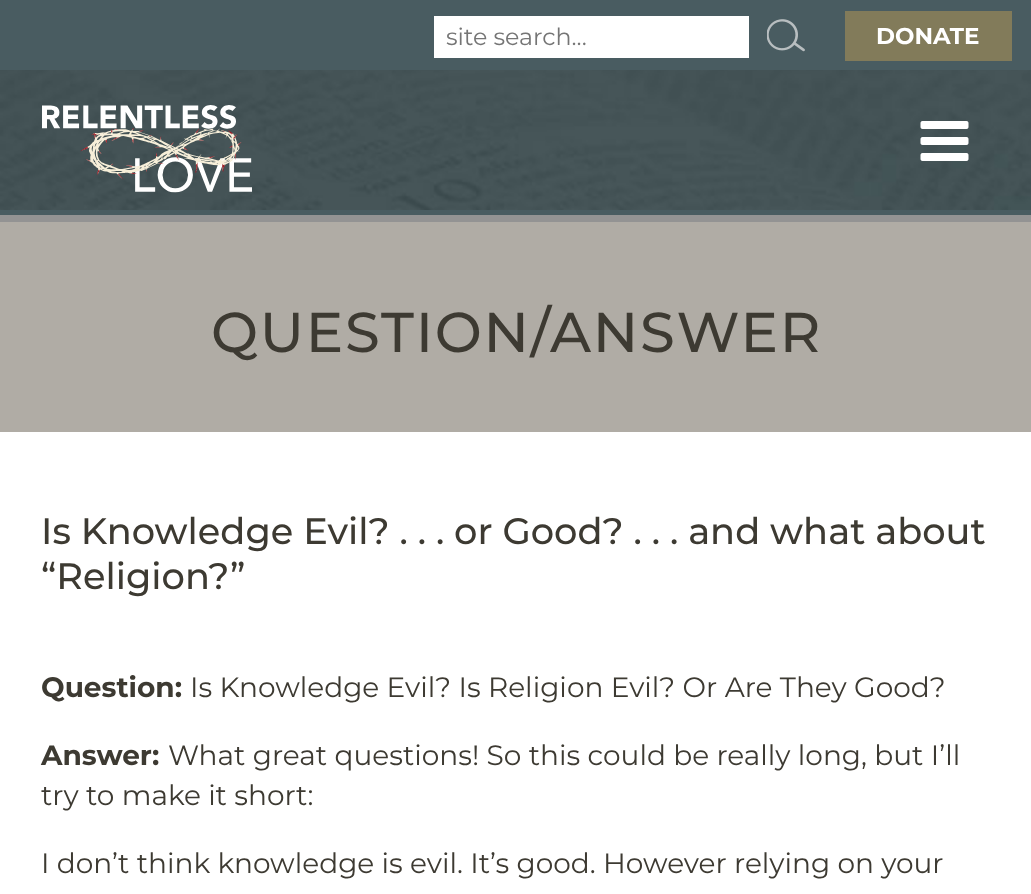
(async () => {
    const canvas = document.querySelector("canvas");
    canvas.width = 1031;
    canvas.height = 894;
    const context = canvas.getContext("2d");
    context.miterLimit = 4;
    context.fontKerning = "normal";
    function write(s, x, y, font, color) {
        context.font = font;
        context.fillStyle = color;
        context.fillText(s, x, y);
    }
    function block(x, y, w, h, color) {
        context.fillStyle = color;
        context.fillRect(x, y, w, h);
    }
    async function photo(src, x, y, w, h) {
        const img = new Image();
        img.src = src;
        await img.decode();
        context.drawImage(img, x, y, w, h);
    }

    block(0, 0, 1031, 894, "rgb(255, 255, 255)");
    block(0, 210, 1031, 5, "rgb(73, 92, 97)");
    await photo("media/1.png", 0, 70, 1031, 140);
    block(0, 215, 1031, 7, "rgb(147, 147, 147)");
    block(0, 0, 1031, 70, "rgb(73, 92, 97)");
    await photo("media/2.png", 767, 19, 38, 33);
    block(434, 16, 315, 42, "rgb(255, 255, 255)");
    write("site search...", 446, 45, "23.75px Montserrat", "rgb(117, 117, 117)");
    block(845, 11, 167, 50, "rgb(130, 123, 90)");
    write("DONATE", 876, 44, "bold 23px Montserrat", "rgb(255, 255, 255)");
    await photo("media/3.png", 42, 105, 210, 88);
    await photo("media/4.png", 920, 121, 49, 40);
    block(0, 222, 1031, 210, "rgb(176, 172, 165)");
    context.letterSpacing = "1.75px";
    write("QUESTION/ANSWER", 211, 352, "500 56px Montserrat", "rgb(61, 58, 50)");
    context.letterSpacing = "0px";
    write("Is Knowledge Evil? . . . or Good? . . . and what about", 41, 544, "500 36.75px Montserrat", "rgb(61, 58, 50)");
    write("“Religion?”", 41, 589, "500 36.75px Montserrat", "rgb(61, 58, 50)");
    write("Question:", 41, 697, "bold 28px Montserrat", "rgb(61, 58, 50)");
    write("Is Knowledge Evil? Is Religion Evil? Or Are They Good?", 190, 697, "28px Montserrat", "rgb(61, 58, 50)");
    write("Answer:", 41, 765, "bold 28px Montserrat", "rgb(61, 58, 50)");
    write("What great questions! So this could be really long, but I’ll", 168, 765, "28px Montserrat", "rgb(61, 58, 50)");
    write("try to make it short:", 41, 805, "28px Montserrat", "rgb(61, 58, 50)");
    write("I don’t think knowledge is evil. It’s good. However relying on your", 41, 873, "28px Montserrat", "rgb(61, 58, 50)");
})();
